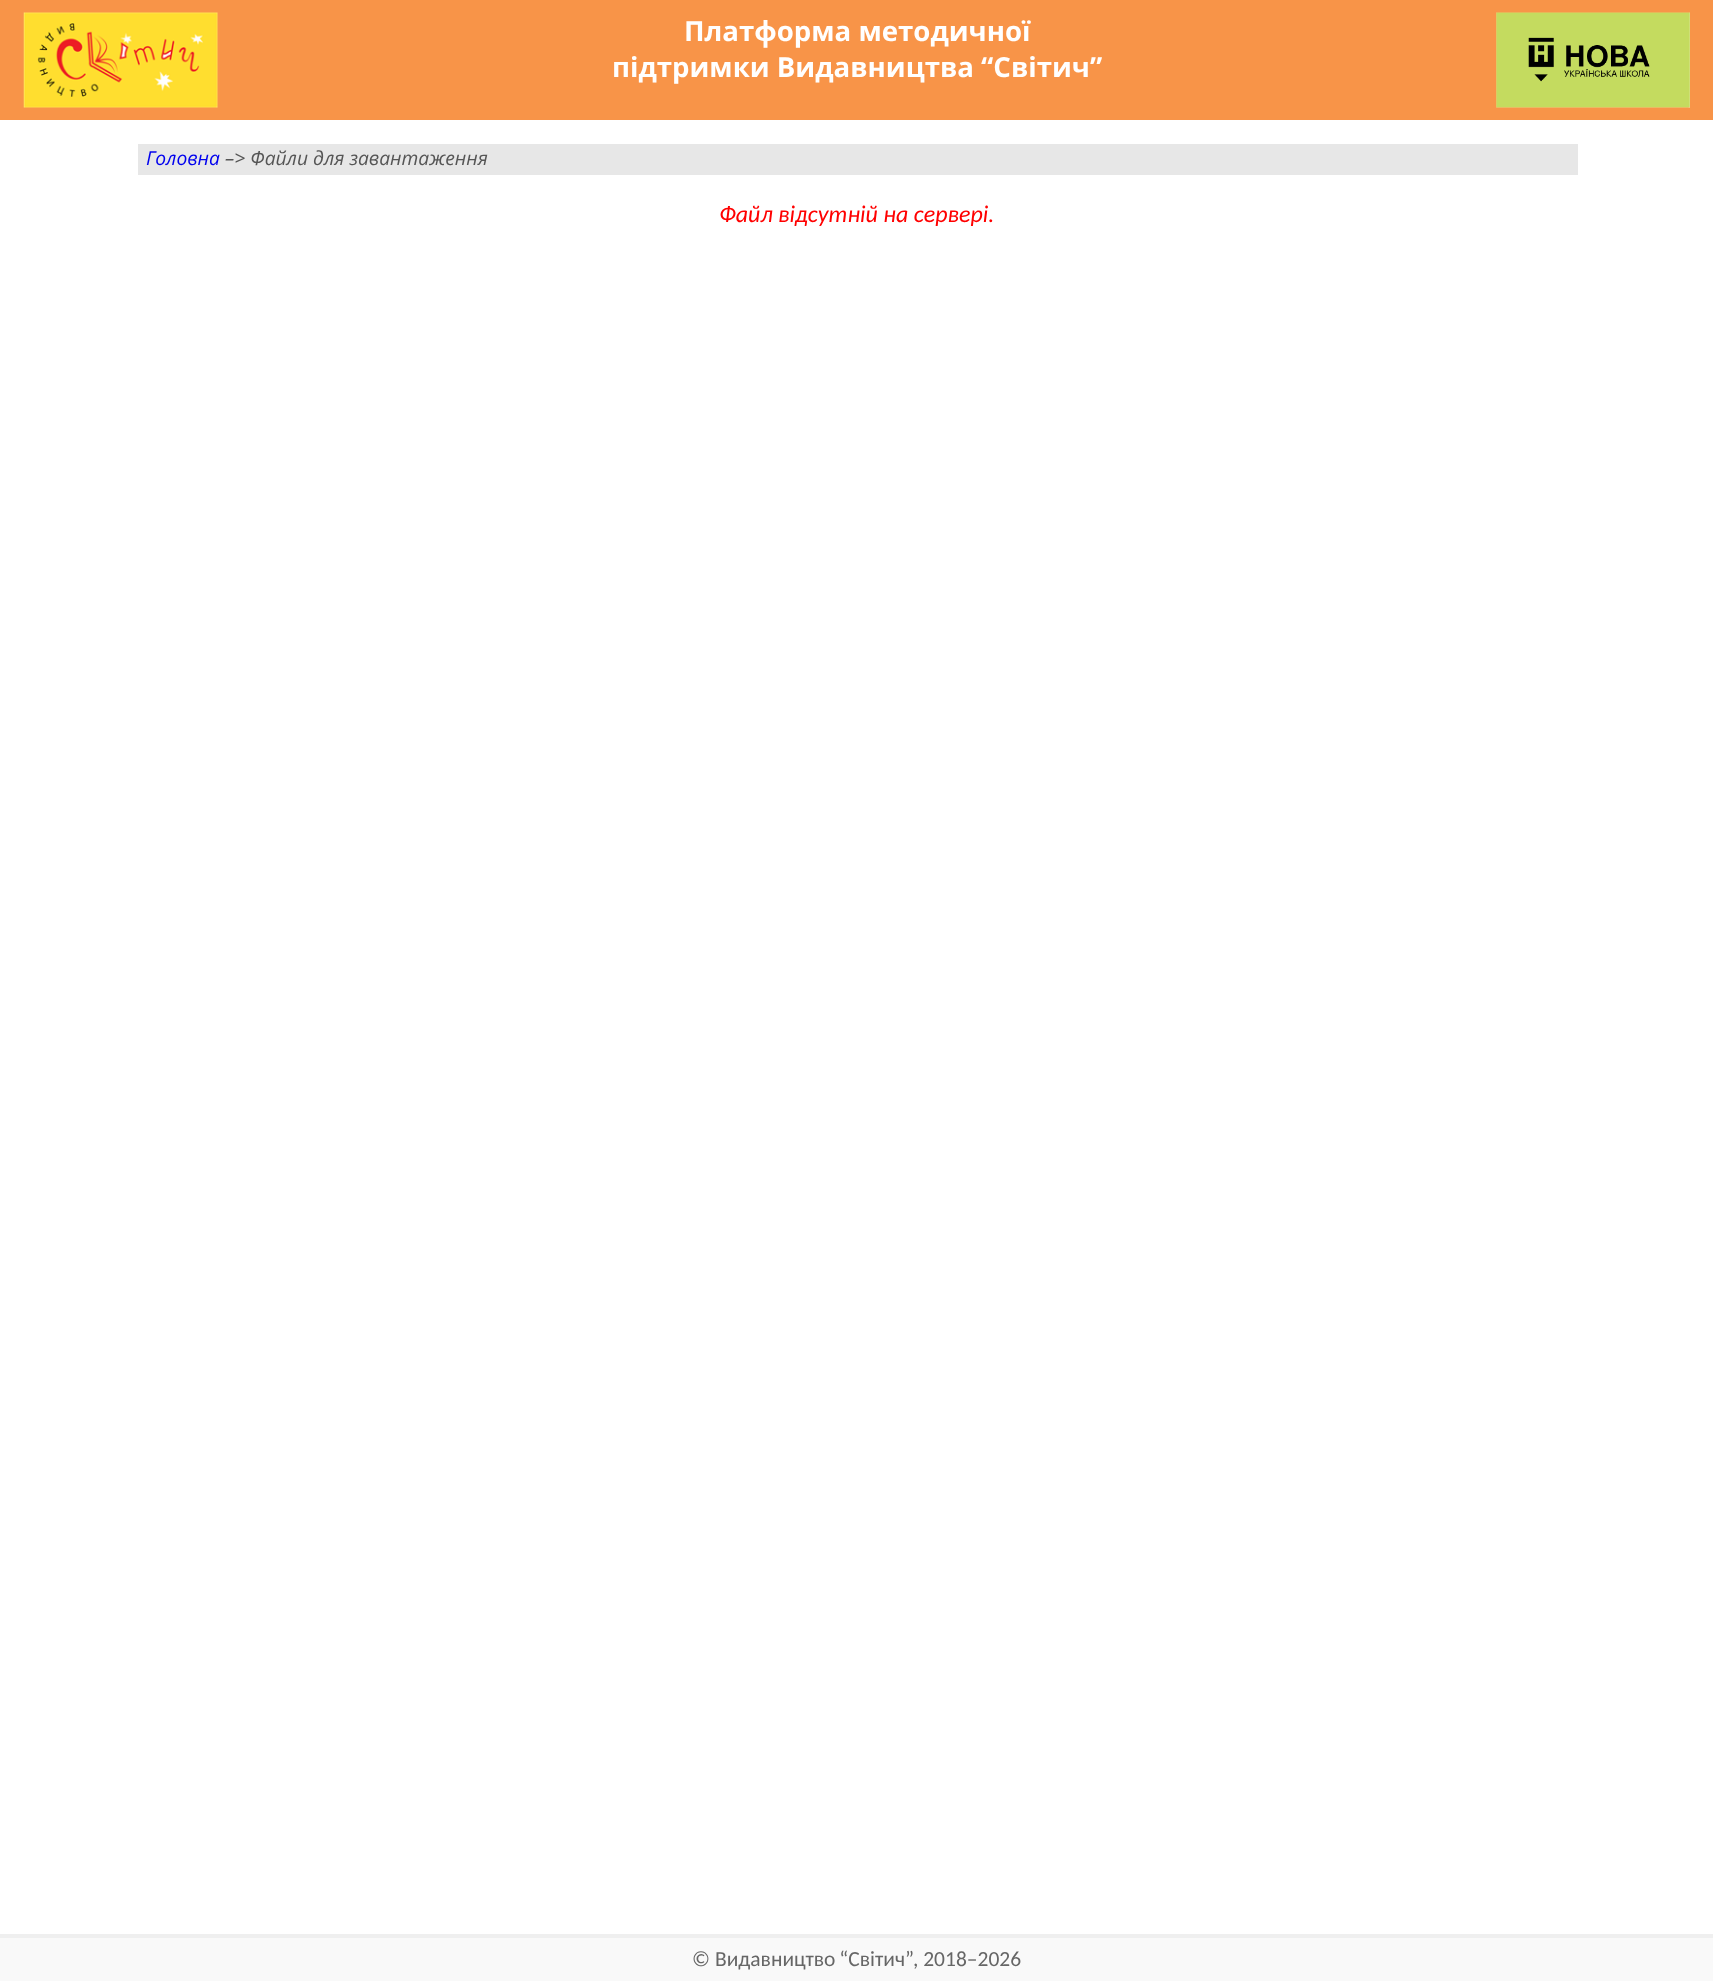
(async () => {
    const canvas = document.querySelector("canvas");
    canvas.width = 1713;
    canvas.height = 1981;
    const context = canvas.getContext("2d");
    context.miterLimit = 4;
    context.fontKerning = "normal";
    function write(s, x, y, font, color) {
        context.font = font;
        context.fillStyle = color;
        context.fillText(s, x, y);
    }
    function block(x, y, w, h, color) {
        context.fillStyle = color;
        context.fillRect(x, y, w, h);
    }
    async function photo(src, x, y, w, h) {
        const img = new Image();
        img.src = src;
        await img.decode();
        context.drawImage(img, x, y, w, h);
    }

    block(0, 0, 1713, 1981, "rgb(255, 255, 255)");
    block(0, 0, 1713, 120, "rgb(248, 148, 72)");
    await photo("media/1.png", 23, 12, 195, 96);
    write("Платформа методичної", 684, 41, "bold 27.6px Open Sans", "rgb(255, 255, 255)");
    write("підтримки Видавництва “Світич”", 612, 77, "bold 27.6px Open Sans", "rgb(255, 255, 255)");
    await photo("media/2.png", 1496, 12, 194, 96);
    block(138, 144, 1440, 31, "rgb(231, 231, 231)");
    write("Головна", 146, 165, "italic 19.25px Open Sans", "rgb(0, 0, 238)");
    write("–> Файли для завантаження", 225, 165, "italic 19.25px Open Sans", "rgb(85, 85, 85)");
    write("Файл відсутній на сервері.", 719, 222, "italic 24px Carlito", "rgb(255, 0, 0)");
    block(0, 1938, 1713, 43, "rgb(249, 249, 249)");
    block(0, 1934, 1713, 4, "rgb(239, 239, 239)");
    write("©", 692, 1966, "21.5px Carlito", "rgb(102, 102, 102)");
    context.wordSpacing = "-1px";
    write("Видавництво “Світич”", 715, 1966, "21.5px Carlito", "rgb(102, 102, 102)");
    context.wordSpacing = "0px";
    write(", 2018–2026", 913, 1966, "21.5px Carlito", "rgb(102, 102, 102)");
})();
